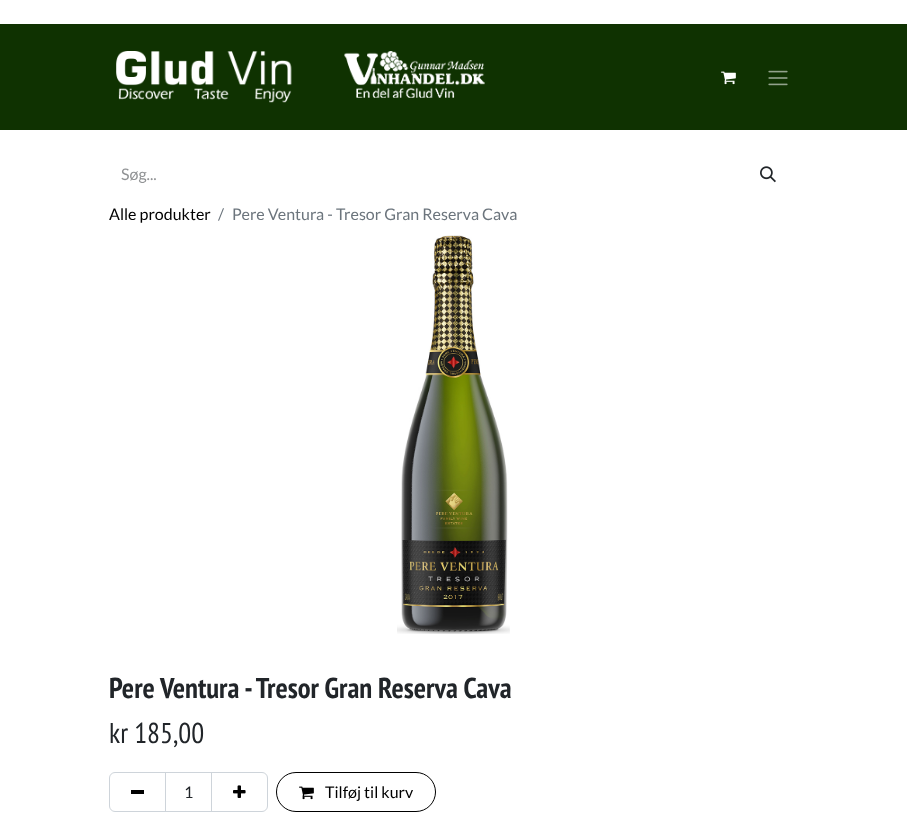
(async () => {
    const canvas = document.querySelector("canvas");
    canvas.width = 907;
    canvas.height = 827;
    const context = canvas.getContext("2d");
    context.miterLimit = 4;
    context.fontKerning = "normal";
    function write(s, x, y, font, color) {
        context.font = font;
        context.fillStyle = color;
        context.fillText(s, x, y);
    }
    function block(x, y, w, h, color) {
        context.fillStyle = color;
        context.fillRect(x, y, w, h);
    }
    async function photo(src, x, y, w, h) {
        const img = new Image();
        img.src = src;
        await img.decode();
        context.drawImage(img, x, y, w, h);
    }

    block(0, 0, 907, 827, "rgb(255, 255, 255)");
    block(0, 24, 907, 106, "rgb(15, 50, 1)");
    await photo("media/1.png", 116, 51, 369, 52);
    await photo("media/2.png", 721, 71, 15, 14);
    await photo("media/3.png", 768, 70, 20, 16);
    write("Søg...", 121, 180, "16px Lato", "rgb(144, 146, 148)");
    await photo("media/4.png", 760, 166, 16, 17);
    write("Alle produkter", 109, 220, "16px Lato", "rgb(0, 0, 0)");
    write("/", 218, 220, "16px Lato", "rgb(108, 117, 125)");
    write("Pere Ventura - Tresor Gran Reserva Cava", 232, 220, "16px Lato", "rgb(108, 117, 125)");
    await photo("media/5.png", 397, 235, 113, 399);
    write("Pere Ventura - Tresor Gran Reserva Cava", 109, 698, "bold 28.75px PT Sans Narrow", "rgb(33, 37, 41)");
    write("kr 185,00", 109, 743, "28.75px PT Sans Narrow", "rgb(33, 37, 41)");
    context.strokeStyle = "rgb(206, 212, 218)";
    context.strokeRect(165.5, 772.5, 46, 39);
    context.beginPath();
    context.roundRect(109.5, 772.5, 56, 39, [5.5, 0, 0, 5.5]);
    context.stroke();
    block(131, 790, 13, 4, "rgb(0, 0, 0)");
    write("1", 184, 798, "16px Lato", "rgb(33, 37, 41)");
    context.beginPath();
    context.roundRect(211.5, 772.5, 56, 39, [0, 5.5, 5.5, 0]);
    context.stroke();
    await photo("media/6.png", 233, 785, 13, 13);
    context.beginPath();
    context.roundRect(276.5, 772.5, 159, 39, 19.5);
    context.strokeStyle = "rgb(0, 0, 0)";
    context.stroke();
    await photo("media/7.png", 299, 786, 15, 14);
    write("Tilføj til kurv", 325, 798, "16px Lato", "rgb(0, 0, 0)");
})();
